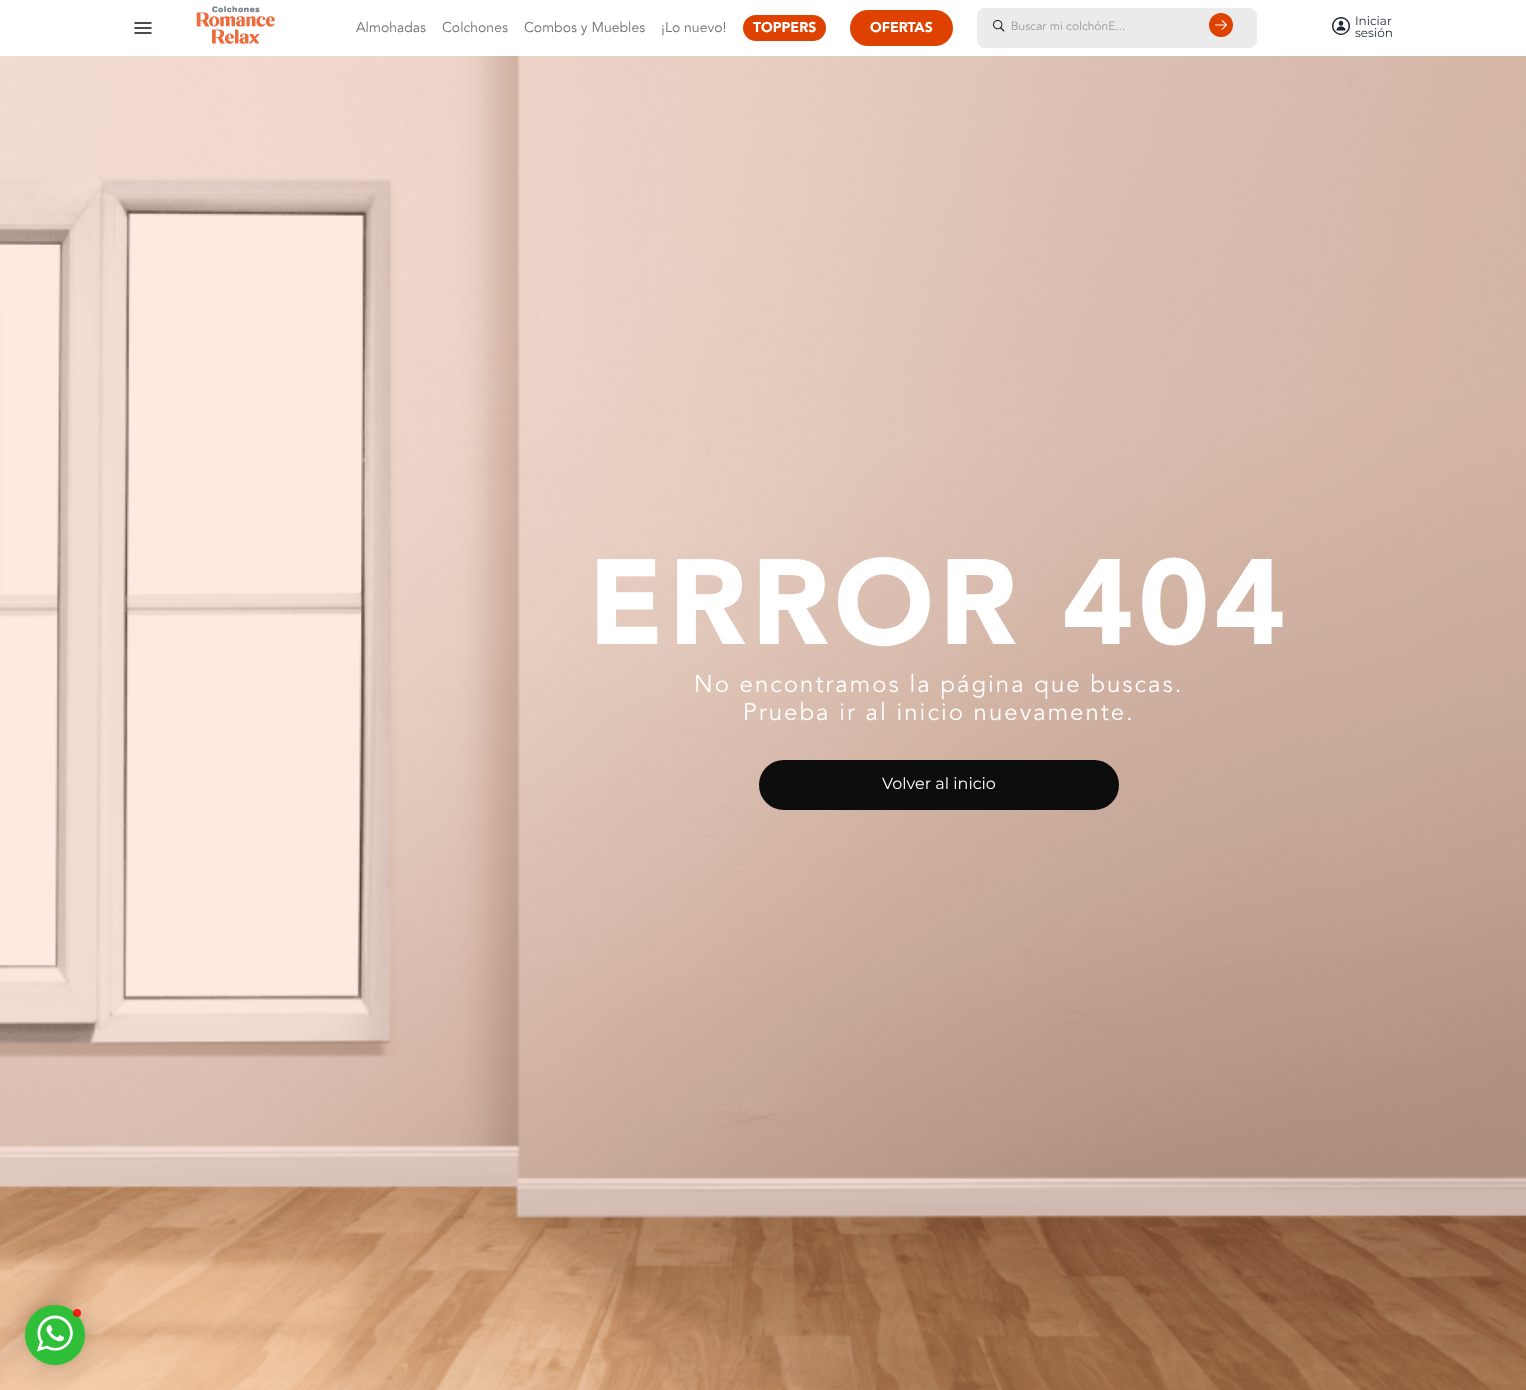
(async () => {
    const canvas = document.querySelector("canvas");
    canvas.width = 1526;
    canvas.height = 1390;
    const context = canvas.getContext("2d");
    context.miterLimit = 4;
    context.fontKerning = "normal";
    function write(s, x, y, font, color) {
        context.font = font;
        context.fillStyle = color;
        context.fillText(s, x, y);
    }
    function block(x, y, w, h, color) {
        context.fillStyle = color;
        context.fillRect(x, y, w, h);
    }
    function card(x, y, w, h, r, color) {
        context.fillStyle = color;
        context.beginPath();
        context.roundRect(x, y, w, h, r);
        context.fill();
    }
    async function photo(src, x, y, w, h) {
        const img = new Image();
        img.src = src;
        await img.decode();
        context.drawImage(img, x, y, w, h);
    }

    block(0, 0, 1526, 1390, "rgb(255, 255, 255)");
    await photo("media/1.png", 134, 22, 18, 12);
    await photo("media/2.png", 196, 6, 79, 38);
    write("Almohadas", 356, 32, "14px Avenir", "rgb(114, 114, 115)");
    write("Colchones", 442, 32, "14px Avenir", "rgb(114, 114, 115)");
    write("Combos y Muebles", 524, 32, "14px Avenir", "rgb(114, 114, 115)");
    write("¡Lo nuevo!", 661, 32, "14px Avenir", "rgb(114, 114, 115)");
    card(743, 15, 83, 26, 13, "rgb(222, 65, 0)");
    write("TOPPERS", 753, 32, "900 14px Avenir", "rgb(255, 255, 255)");
    card(850, 10, 103, 36, 18, "rgb(222, 65, 0)");
    write("OFERTAS", 870, 32, "900 14px Avenir", "rgb(255, 255, 255)");
    context.fillStyle = "rgb(236, 235, 235)";
    context.beginPath();
    context.roundRect(977, 8, 32, 40, [8, 0, 0, 8]);
    context.fill();
    await photo("media/3.png", 993, 20, 12, 12);
    card(1009, 8, 188, 40, 1, "rgb(236, 235, 235)");
    write("Buscar mi colchónE...", 1011, 30, "12px Avenir", "rgb(151, 152, 153)");
    context.fillStyle = "rgb(236, 235, 235)";
    context.beginPath();
    context.roundRect(1197, 8, 60, 40, [0, 8, 8, 0]);
    context.fill();
    await photo("media/4.png", 1209, 13, 24, 24);
    await photo("media/5.png", 1332, 17, 18, 18);
    write("Iniciar", 1355, 25, "12px Montserrat", "rgb(29, 39, 52)");
    write("sesión", 1355, 37, "12px Montserrat", "rgb(29, 39, 52)");
    await photo("media/6.png", 0, 56, 1526, 1334);
    context.letterSpacing = "5px";
    write("ERROR 404", 588, 644, "900 120px Avenir", "rgb(255, 255, 255)");
    context.letterSpacing = "2px";
    write("No encontramos la página que buscas.", 694, 692, "24px Avenir", "rgb(255, 255, 255)");
    write("Prueba ir al inicio nuevamente.", 743, 720, "24px Avenir", "rgb(255, 255, 255)");
    context.fillStyle = "rgb(13, 13, 13)";
    context.beginPath();
    context.roundRect(760, 761, 358, 48, 24);
    context.fill();
    context.strokeStyle = "rgb(13, 13, 13)";
    context.lineWidth = 2;
    context.stroke();
    context.letterSpacing = "0px";
    write("Volver al inicio", 882, 789, "16px Montserrat", "rgb(255, 255, 255)");
    context.fillStyle = "rgba(0, 0, 0, 0.16)";
    context.filter = "blur(16px)";
    context.beginPath();
    context.roundRect(25, 1307, 60, 60, 30);
    context.fill();
    context.filter = "none";
    context.fillStyle = "rgba(0, 0, 0, 0.06)";
    context.filter = "blur(3px)";
    context.beginPath();
    context.roundRect(25, 1306, 60, 60, 30);
    context.fill();
    context.filter = "none";
    await photo("media/7.png", 25, 1305, 60, 60);
    context.fillStyle = "rgba(255, 0, 0, 0.85)";
    context.beginPath();
    context.arc(77, 1313, 4, 0, Math.PI * 2);
    context.fill();
})();
